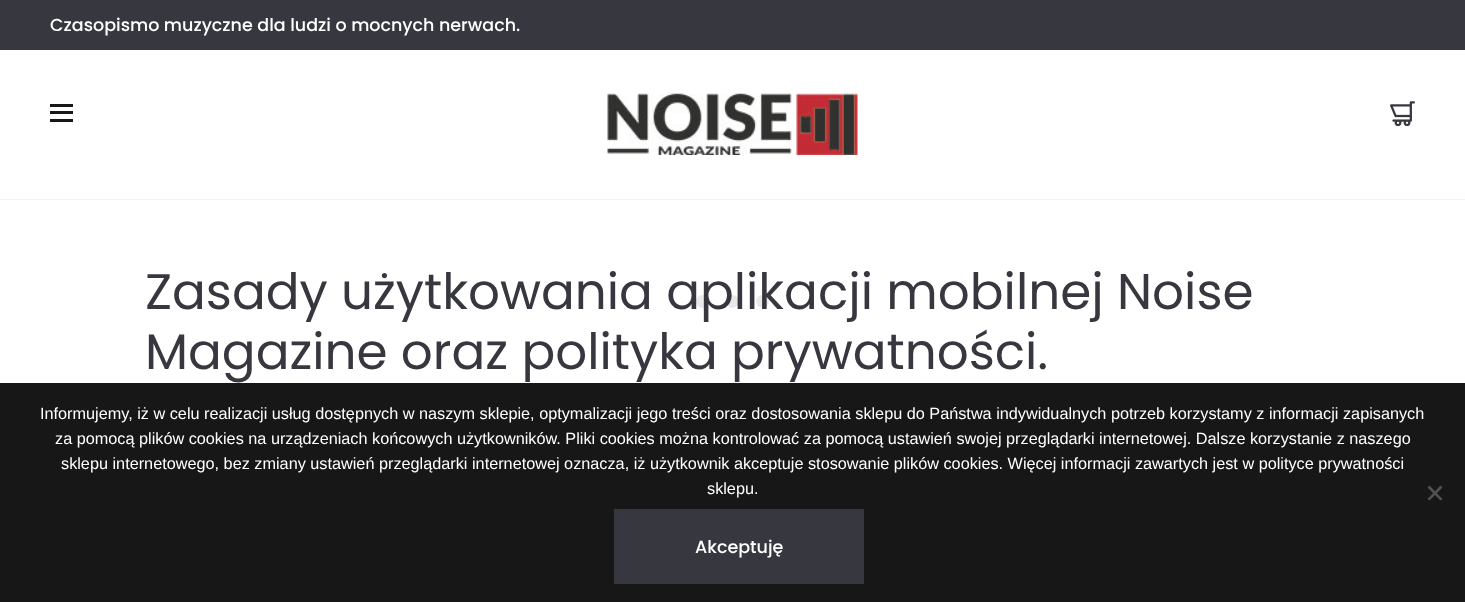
(async () => {
    const canvas = document.querySelector("canvas");
    canvas.width = 1465;
    canvas.height = 602;
    const context = canvas.getContext("2d");
    context.miterLimit = 4;
    context.fontKerning = "normal";
    function write(s, x, y, font, color) {
        context.font = font;
        context.fillStyle = color;
        context.fillText(s, x, y);
    }
    function block(x, y, w, h, color) {
        context.fillStyle = color;
        context.fillRect(x, y, w, h);
    }
    async function photo(src, x, y, w, h) {
        const img = new Image();
        img.src = src;
        await img.decode();
        context.drawImage(img, x, y, w, h);
    }

    block(0, 0, 1465, 602, "rgb(255, 255, 255)");
    block(0, 0, 1465, 50, "rgb(55, 55, 63)");
    write("Czasopismo muzyczne dla ludzi o mocnych nerwach.", 50, 31, "500 17.5px Poppins", "rgb(255, 255, 255)");
    block(0, 199, 1465, 1, "rgb(242, 243, 245)");
    block(50, 111, 23, 3, "rgb(23, 23, 23)");
    block(50, 104, 23, 3, "rgb(23, 23, 23)");
    block(50, 119, 23, 3, "rgb(23, 23, 23)");
    await photo("media/1.png", 607, 93, 251, 62);
    await photo("media/2.png", 1390, 101, 25, 25);
    write("Zasady użytkowania aplikacji mobilnej Noise", 145, 309, "50px Poppins", "rgb(55, 55, 63)");
    write("Magazine oraz polityka prywatności.", 145, 369, "50px Poppins", "rgb(55, 55, 63)");
    context.fillStyle = "rgba(35, 35, 44, 0.1)";
    context.beginPath();
    context.arc(702.5, 301.5, 6.5, 0, Math.PI * 2);
    context.fill();
    context.beginPath();
    context.arc(732.5, 301.5, 6.5, 0, Math.PI * 2);
    context.fill();
    context.beginPath();
    context.arc(762.5, 301.5, 6.5, 0, Math.PI * 2);
    context.fill();
    block(0, 383, 1465, 219, "rgb(23, 23, 23)");
    write("Informujemy, iż w celu realizacji usług dostępnych w naszym sklepie, optymalizacji jego treści oraz dostosowania sklepu do Państwa indywidualnych potrzeb korzystamy z informacji zapisanych", 40, 419, "16.25px Liberation Sans", "rgb(255, 255, 255)");
    write("za pomocą plików cookies na urządzeniach końcowych użytkowników. Pliki cookies można kontrolować za pomocą ustawień swojej przeglądarki internetowej. Dalsze korzystanie z naszego", 55, 444, "16.25px Liberation Sans", "rgb(255, 255, 255)");
    write("sklepu internetowego, bez zmiany ustawień przeglądarki internetowej oznacza, iż użytkownik akceptuje stosowanie plików cookies. Więcej informacji zawartych jest w polityce prywatności", 61, 469, "16.25px Liberation Sans", "rgb(255, 255, 255)");
    write("sklepu.", 707, 494, "16.25px Liberation Sans", "rgb(255, 255, 255)");
    context.fillStyle = "rgb(81, 81, 81)";
    context.beginPath();
    context.moveTo(1440.5, 485.5);
    context.lineTo(1442.5, 487.5);
    context.lineTo(1429.5, 500.5);
    context.lineTo(1427.5, 499);
    context.closePath();
    context.fill();
    context.beginPath();
    context.moveTo(1427.5, 487.5);
    context.lineTo(1429.5, 485.5);
    context.lineTo(1442.5, 499);
    context.lineTo(1440.5, 500.5);
    context.closePath();
    context.fill();
    block(614, 509, 250, 75, "rgb(55, 55, 63)");
    write("Akceptuję", 695, 553, "500 17.5px Poppins", "rgb(255, 255, 255)");
})();
